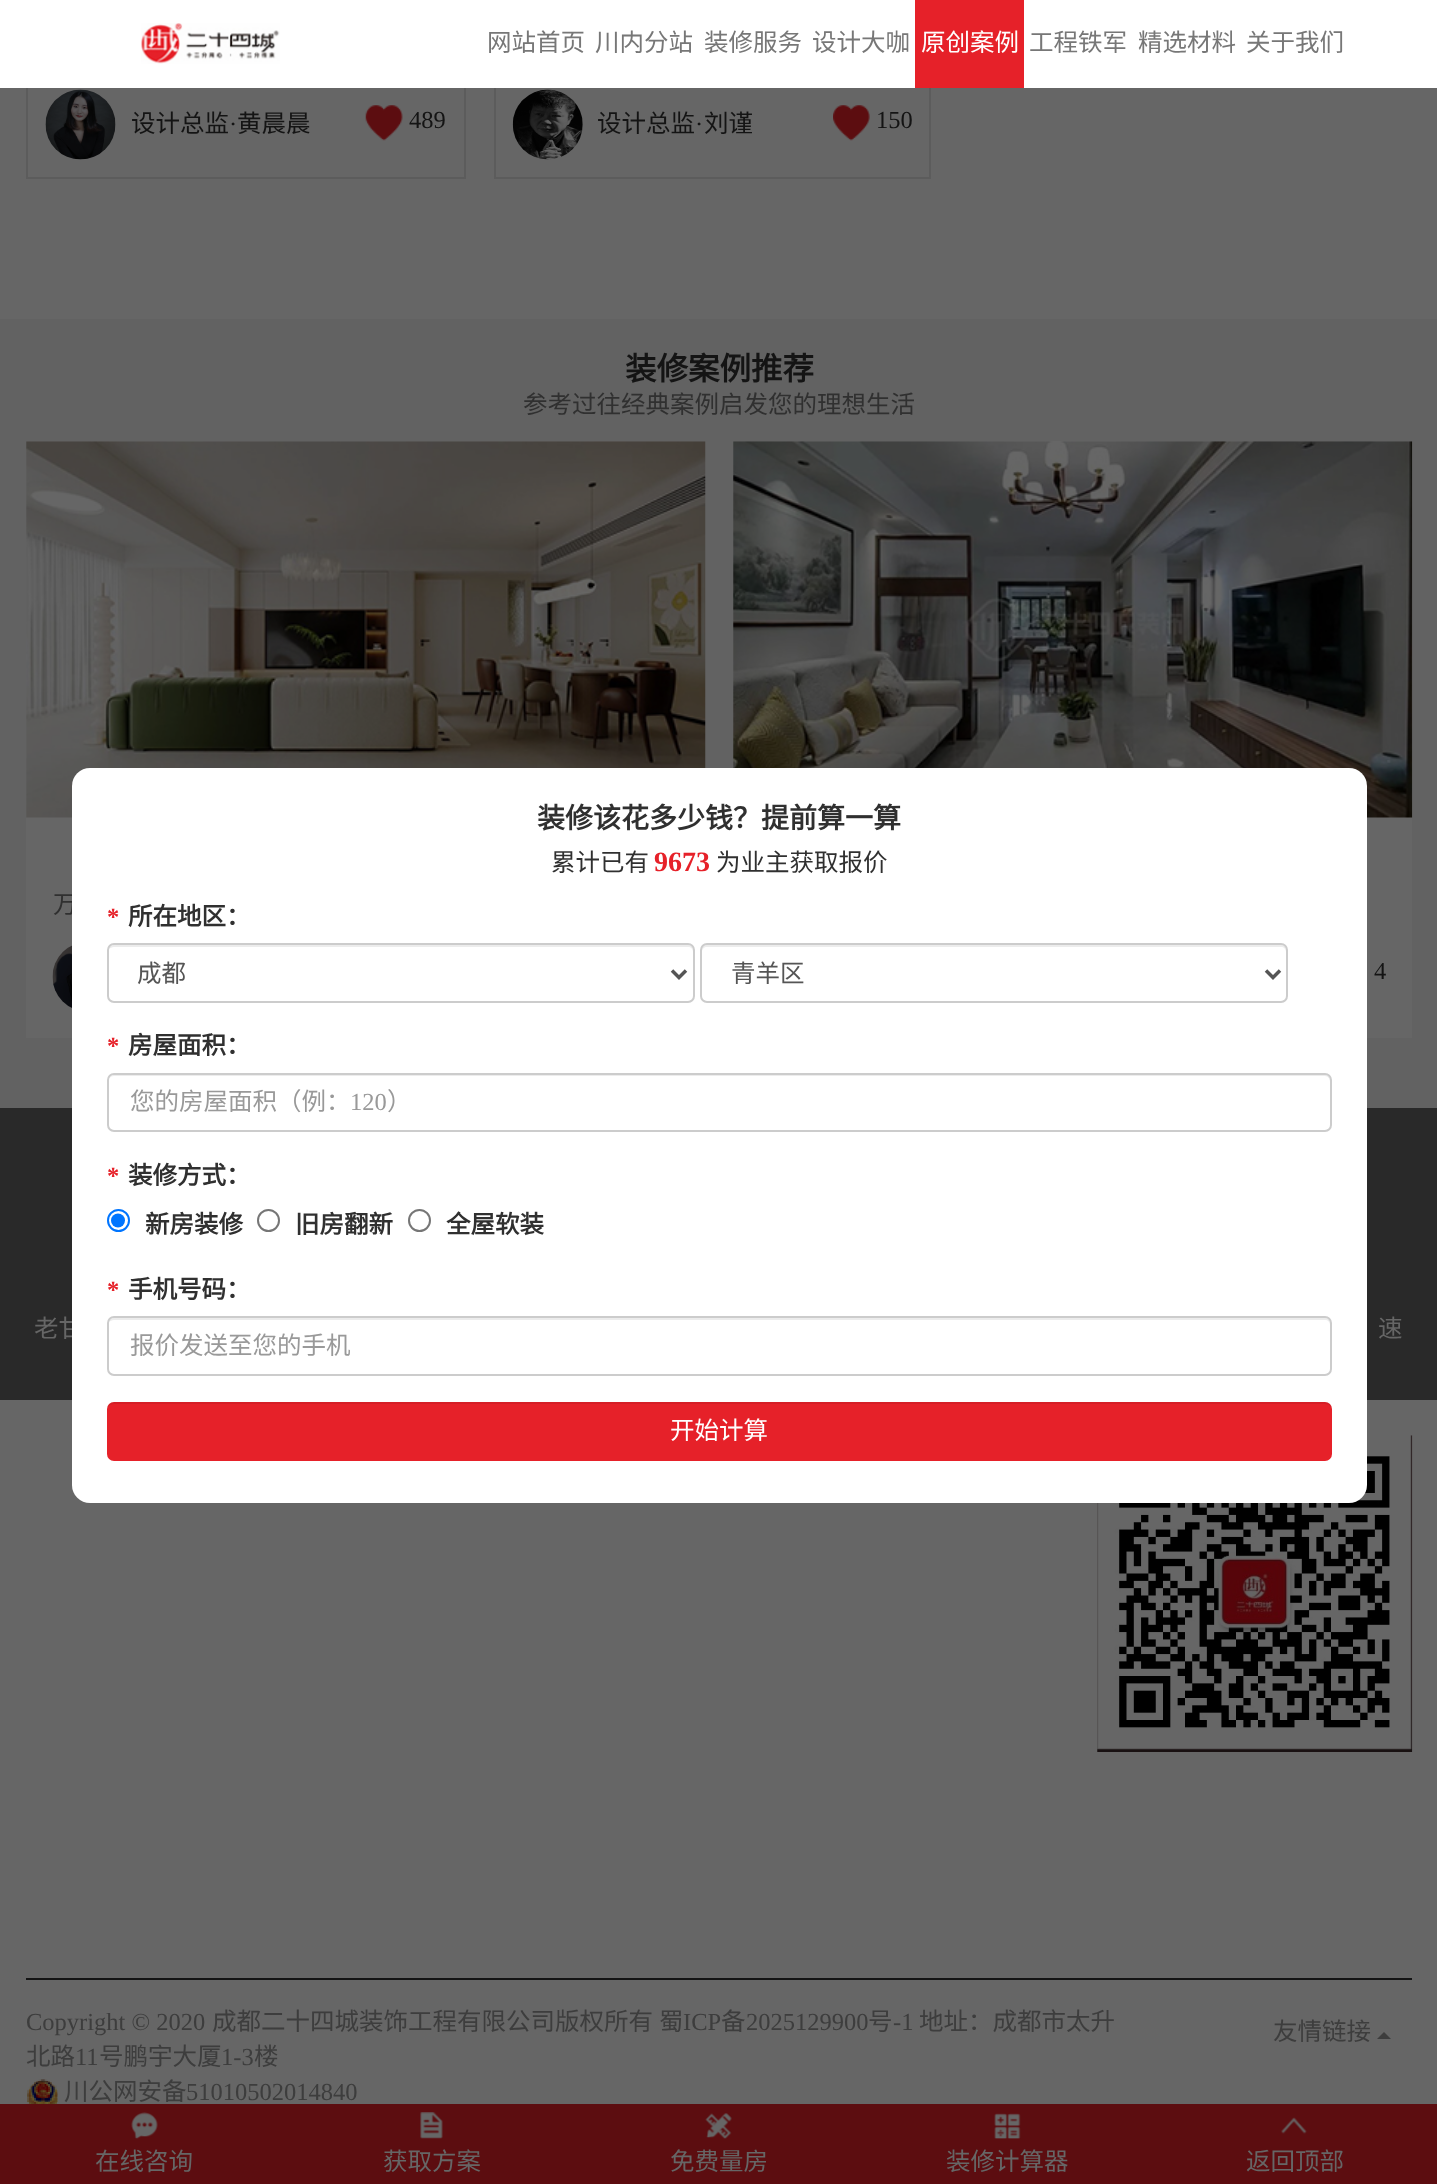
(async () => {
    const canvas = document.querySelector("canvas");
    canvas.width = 1437;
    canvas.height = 2184;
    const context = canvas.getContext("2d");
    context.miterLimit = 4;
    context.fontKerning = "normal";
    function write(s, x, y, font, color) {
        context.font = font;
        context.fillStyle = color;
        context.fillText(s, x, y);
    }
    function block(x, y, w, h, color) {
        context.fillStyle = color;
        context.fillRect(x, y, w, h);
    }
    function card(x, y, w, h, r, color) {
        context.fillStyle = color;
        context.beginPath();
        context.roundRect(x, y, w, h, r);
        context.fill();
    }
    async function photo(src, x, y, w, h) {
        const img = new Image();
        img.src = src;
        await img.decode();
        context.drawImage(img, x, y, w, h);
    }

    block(0, 0, 1437, 2184, "rgb(102, 102, 102)");
    context.strokeStyle = "rgb(92, 92, 92)";
    context.lineWidth = 2;
    context.strokeRect(27, -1, 438, 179);
    context.strokeRect(495, -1, 435, 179);
    block(0, 0, 1437, 88, "rgb(255, 255, 255)");
    await photo("media/1.png", 141, 23, 139, 41);
    write("网站首页", 487, 51, "24.5px Noto Sans CJK SC", "rgb(119, 119, 119)");
    write("川内分站", 595, 51, "24.5px Noto Sans CJK SC", "rgb(119, 119, 119)");
    write("装修服务", 704, 51, "24.5px Noto Sans CJK SC", "rgb(119, 119, 119)");
    write("设计大咖", 812, 51, "24.5px Noto Sans CJK SC", "rgb(119, 119, 119)");
    block(915, 0, 109, 88, "rgb(230, 33, 41)");
    write("原创案例", 921, 51, "24.5px Noto Sans CJK SC", "rgb(255, 255, 255)");
    write("工程铁军", 1029, 51, "24.5px Noto Sans CJK SC", "rgb(119, 119, 119)");
    write("精选材料", 1138, 51, "24.5px Noto Sans CJK SC", "rgb(119, 119, 119)");
    write("关于我们", 1246, 51, "24.5px Noto Sans CJK SC", "rgb(119, 119, 119)");
    await photo("media/2.png", 45, 89, 71, 71);
    write("设计总监", 131, 132, "24.5px Noto Sans CJK SC", "rgb(20, 20, 20)");
    write("·", 229, 132, "24.5px Liberation Serif", "rgb(20, 20, 20)");
    write("黄晨晨", 237, 132, "24.5px Noto Sans CJK SC", "rgb(20, 20, 20)");
    await photo("media/3.png", 365, 105, 38, 36);
    write("489", 409, 128, "24.5px Liberation Serif", "rgb(20, 20, 20)");
    await photo("media/4.png", 512, 89, 71, 71);
    write("设计总监", 597, 132, "24.5px Noto Sans CJK SC", "rgb(20, 20, 20)");
    write("·", 695, 132, "24.5px Liberation Serif", "rgb(20, 20, 20)");
    write("刘谨", 704, 132, "24.5px Noto Sans CJK SC", "rgb(20, 20, 20)");
    await photo("media/5.png", 833, 105, 37, 36);
    write("150", 876, 128, "24.5px Liberation Serif", "rgb(20, 20, 20)");
    block(0, 319, 1437, 789, "rgb(98, 98, 98)");
    write("装修案例推荐", 625, 380, "bold 31.5px Noto Sans CJK SC", "rgb(20, 20, 20)");
    write("参考过往经典案例启发您的理想生活", 523, 413, "24.5px Noto Sans CJK SC", "rgb(48, 48, 48)");
    block(26, 441, 679, 597, "rgb(102, 102, 102)");
    await photo("media/6.png", 26, 441, 680, 377);
    write("万", 53, 913, "24.5px Noto Sans CJK SC", "rgb(48, 48, 48)");
    await photo("media/7.png", 52, 945, 20, 63);
    block(733, 441, 679, 597, "rgb(102, 102, 102)");
    await photo("media/8.png", 733, 441, 680, 377);
    write("4", 1374, 979, "24.5px Liberation Serif", "rgb(20, 20, 20)");
    block(0, 1108, 1437, 292, "rgb(41, 41, 41)");
    write("老甘", 34, 1337, "24.5px Noto Sans CJK SC", "rgb(102, 102, 102)");
    await photo("media/9.png", 1097, 1435, 316, 317);
    card(72, 768, 1295, 735, 18, "rgb(255, 255, 255)");
    write("装修该花多少钱？提前算一算", 537, 828, "bold 28px Noto Sans CJK SC", "rgb(48, 48, 48)");
    write("累计已有", 551, 871, "24.5px Noto Sans CJK SC", "rgb(48, 48, 48)");
    write("9673", 654, 871, "bold 28px Liberation Serif", "rgb(230, 33, 41)");
    write("为业主获取报价", 716, 871, "24.5px Noto Sans CJK SC", "rgb(48, 48, 48)");
    write("*", 107, 925, "bold 24.5px Liberation Serif", "rgb(230, 33, 41)");
    write("所在地区：", 128, 925, "bold 24.5px Noto Sans CJK SC", "rgb(48, 48, 48)");
    context.fillStyle = "rgb(236, 236, 236)";
    context.beginPath();
    context.moveTo(114, 947);
    context.lineTo(688, 947);
    context.bezierCurveTo(691, 947, 693, 949, 693, 952);
    context.lineTo(693, 950);
    context.bezierCurveTo(693, 947, 691, 945, 688, 945);
    context.lineTo(114, 945);
    context.bezierCurveTo(112, 945, 109, 947, 109, 949);
    context.bezierCurveTo(110, 948, 112, 947, 114, 947);
    context.closePath();
    context.fill();
    context.beginPath();
    context.roundRect(108, 944, 586, 58, 6);
    context.strokeStyle = "rgb(204, 204, 204)";
    context.stroke();
    context.beginPath();
    context.moveTo(672, 970.5);
    context.lineTo(679, 977.5);
    context.lineTo(686, 970.5);
    context.strokeStyle = "rgb(85, 85, 85)";
    context.lineWidth = 3.5;
    context.stroke();
    write("成都", 137, 982, "24.5px Noto Sans CJK SC", "rgb(85, 85, 85)");
    context.fillStyle = "rgb(236, 236, 236)";
    context.beginPath();
    context.moveTo(707, 947);
    context.lineTo(1281, 947);
    context.bezierCurveTo(1284, 947, 1286, 949, 1286, 952);
    context.lineTo(1286, 950);
    context.bezierCurveTo(1286, 947, 1284, 945, 1281, 945);
    context.lineTo(707, 945);
    context.bezierCurveTo(704, 945, 702, 947, 702, 950);
    context.lineTo(702, 952);
    context.bezierCurveTo(702, 949, 704, 947, 707, 947);
    context.closePath();
    context.fill();
    context.beginPath();
    context.roundRect(701, 944, 586, 58, 6);
    context.strokeStyle = "rgb(204, 204, 204)";
    context.lineWidth = 2;
    context.stroke();
    context.beginPath();
    context.moveTo(1266, 970.5);
    context.lineTo(1273, 977.5);
    context.lineTo(1280, 970.5);
    context.strokeStyle = "rgb(85, 85, 85)";
    context.lineWidth = 3.5;
    context.stroke();
    write("青羊区", 731, 982, "24.5px Noto Sans CJK SC", "rgb(85, 85, 85)");
    write("*", 107, 1054, "bold 24.5px Liberation Serif", "rgb(230, 33, 41)");
    write("房屋面积：", 128, 1054, "bold 24.5px Noto Sans CJK SC", "rgb(48, 48, 48)");
    context.fillStyle = "rgb(236, 236, 236)";
    context.beginPath();
    context.moveTo(114, 1076);
    context.lineTo(1325, 1076);
    context.bezierCurveTo(1328, 1076, 1330, 1079, 1330, 1082);
    context.lineTo(1330, 1080);
    context.bezierCurveTo(1330, 1077, 1328, 1075, 1325, 1075);
    context.lineTo(114, 1075);
    context.bezierCurveTo(112, 1075, 110, 1077, 109, 1079);
    context.bezierCurveTo(110, 1077, 112, 1076, 114, 1076);
    context.closePath();
    context.fill();
    context.beginPath();
    context.roundRect(108, 1074, 1223, 57, 6);
    context.strokeStyle = "rgb(204, 204, 204)";
    context.lineWidth = 2;
    context.stroke();
    write("您的房屋面积（例：", 130, 1110, "24.5px Noto Sans CJK SC", "rgb(153, 153, 153)");
    write("120", 350, 1110, "24.5px Liberation Serif", "rgb(153, 153, 153)");
    write("）", 387, 1110, "24.5px Noto Sans CJK SC", "rgb(153, 153, 153)");
    write("*", 107, 1184, "bold 24.5px Liberation Serif", "rgb(230, 33, 41)");
    write("装修方式：", 128, 1184, "bold 24.5px Noto Sans CJK SC", "rgb(48, 48, 48)");
    context.beginPath();
    context.arc(118.5, 1220.5, 10.5, 0, Math.PI * 2);
    context.strokeStyle = "rgb(0, 117, 255)";
    context.stroke();
    context.fillStyle = "rgb(0, 117, 255)";
    context.beginPath();
    context.arc(118, 1220.5, 7, 0, Math.PI * 2);
    context.fill();
    write("新房装修", 145, 1233, "bold 24.5px Noto Sans CJK SC", "rgb(48, 48, 48)");
    context.beginPath();
    context.arc(268.5, 1220.5, 10.5, 0, Math.PI * 2);
    context.strokeStyle = "rgb(118, 118, 118)";
    context.stroke();
    write("旧房翻新", 295, 1233, "bold 24.5px Noto Sans CJK SC", "rgb(48, 48, 48)");
    context.beginPath();
    context.arc(419.5, 1220.5, 10.5, 0, Math.PI * 2);
    context.stroke();
    write("全屋软装", 446, 1233, "bold 24.5px Noto Sans CJK SC", "rgb(48, 48, 48)");
    write("*", 107, 1298, "bold 24.5px Liberation Serif", "rgb(230, 33, 41)");
    write("手机号码：", 128, 1298, "bold 24.5px Noto Sans CJK SC", "rgb(48, 48, 48)");
    context.fillStyle = "rgb(236, 236, 236)";
    context.beginPath();
    context.moveTo(114, 1320);
    context.lineTo(1325, 1320);
    context.bezierCurveTo(1328, 1320, 1330, 1322, 1330, 1325);
    context.lineTo(1330, 1323);
    context.bezierCurveTo(1330, 1320, 1328, 1318, 1325, 1318);
    context.lineTo(114, 1318);
    context.bezierCurveTo(112, 1318, 109, 1320, 109, 1322);
    context.bezierCurveTo(110, 1321, 112, 1320, 114, 1320);
    context.closePath();
    context.fill();
    context.beginPath();
    context.roundRect(108, 1317, 1223, 58, 6);
    context.strokeStyle = "rgb(204, 204, 204)";
    context.stroke();
    write("报价发送至您的手机", 130, 1354, "24.5px Noto Sans CJK SC", "rgb(153, 153, 153)");
    card(107, 1402, 1225, 59, 7, "rgb(230, 33, 41)");
    context.fillStyle = "rgba(0, 0, 0, 0.07)";
    context.beginPath();
    context.moveTo(114, 1404);
    context.lineTo(1325, 1404);
    context.bezierCurveTo(1329, 1404, 1332, 1407, 1332, 1410);
    context.bezierCurveTo(1332, 1406, 1330, 1402, 1325, 1402);
    context.lineTo(114, 1402);
    context.bezierCurveTo(109, 1402, 107, 1406, 107, 1410);
    context.bezierCurveTo(107, 1407, 110, 1404, 114, 1404);
    context.closePath();
    context.fill();
    write("开始计算", 670, 1439, "24.5px Noto Sans CJK SC", "rgb(255, 255, 255)");
    write("速", 1378, 1337, "24.5px Noto Sans CJK SC", "rgb(102, 102, 102)");
    block(26, 1978, 1386, 2, "rgb(20, 20, 20)");
    write("Copyright © 2020", 26, 2030, "24.5px Liberation Serif", "rgb(61, 61, 61)");
    write("成都二十四城装饰工程有限公司版权所有", 212, 2030, "24.5px Noto Sans CJK SC", "rgb(61, 61, 61)");
    write("蜀", 659, 2030, "24.5px Noto Sans CJK SC", "rgb(61, 61, 61)");
    write("ICP", 683, 2030, "24.5px Liberation Serif", "rgb(61, 61, 61)");
    write("备", 721, 2030, "24.5px Noto Sans CJK SC", "rgb(61, 61, 61)");
    write("2025129900", 746, 2030, "24.5px Liberation Serif", "rgb(61, 61, 61)");
    write("号", 868, 2030, "24.5px Noto Sans CJK SC", "rgb(61, 61, 61)");
    write("-1", 893, 2030, "24.5px Liberation Serif", "rgb(61, 61, 61)");
    write("地址：成都市太升", 919, 2030, "24.5px Noto Sans CJK SC", "rgb(61, 61, 61)");
    write("北路", 26, 2065, "24.5px Noto Sans CJK SC", "rgb(61, 61, 61)");
    write("11", 75, 2065, "24.5px Liberation Serif", "rgb(61, 61, 61)");
    write("号鹏宇大厦", 99, 2065, "24.5px Noto Sans CJK SC", "rgb(61, 61, 61)");
    write("1-3", 221, 2065, "24.5px Liberation Serif", "rgb(61, 61, 61)");
    write("楼", 254, 2065, "24.5px Noto Sans CJK SC", "rgb(61, 61, 61)");
    await photo("media/10.png", 27, 2079, 31, 25);
    write("川公网安备", 64, 2100, "24.5px Noto Sans CJK SC", "rgb(61, 61, 61)");
    write("51010502014840", 186, 2100, "24.5px Liberation Serif", "rgb(61, 61, 61)");
    write("友情链接", 1273, 2040, "24.5px Noto Sans CJK SC", "rgb(61, 61, 61)");
    context.beginPath();
    context.moveTo(1391, 2039);
    context.lineTo(1377, 2039);
    context.lineTo(1384, 2032);
    context.closePath();
    context.fill();
    block(0, 2104, 1437, 80, "rgb(92, 13, 16)");
    await photo("media/11.png", 131, 2112, 27, 27);
    write("在线咨询", 95, 2170, "24.5px Noto Sans CJK SC", "rgb(102, 102, 102)");
    await photo("media/12.png", 420, 2112, 23, 27);
    write("获取方案", 383, 2170, "24.5px Noto Sans CJK SC", "rgb(102, 102, 102)");
    await photo("media/13.png", 705, 2113, 27, 26);
    write("免费量房", 670, 2170, "24.5px Noto Sans CJK SC", "rgb(102, 102, 102)");
    await photo("media/14.png", 994, 2113, 27, 26);
    write("装修计算器", 946, 2170, "24.5px Noto Sans CJK SC", "rgb(102, 102, 102)");
    await photo("media/15.png", 1281, 2117, 26, 17);
    write("返回顶部", 1246, 2170, "24.5px Noto Sans CJK SC", "rgb(102, 102, 102)");
})();
